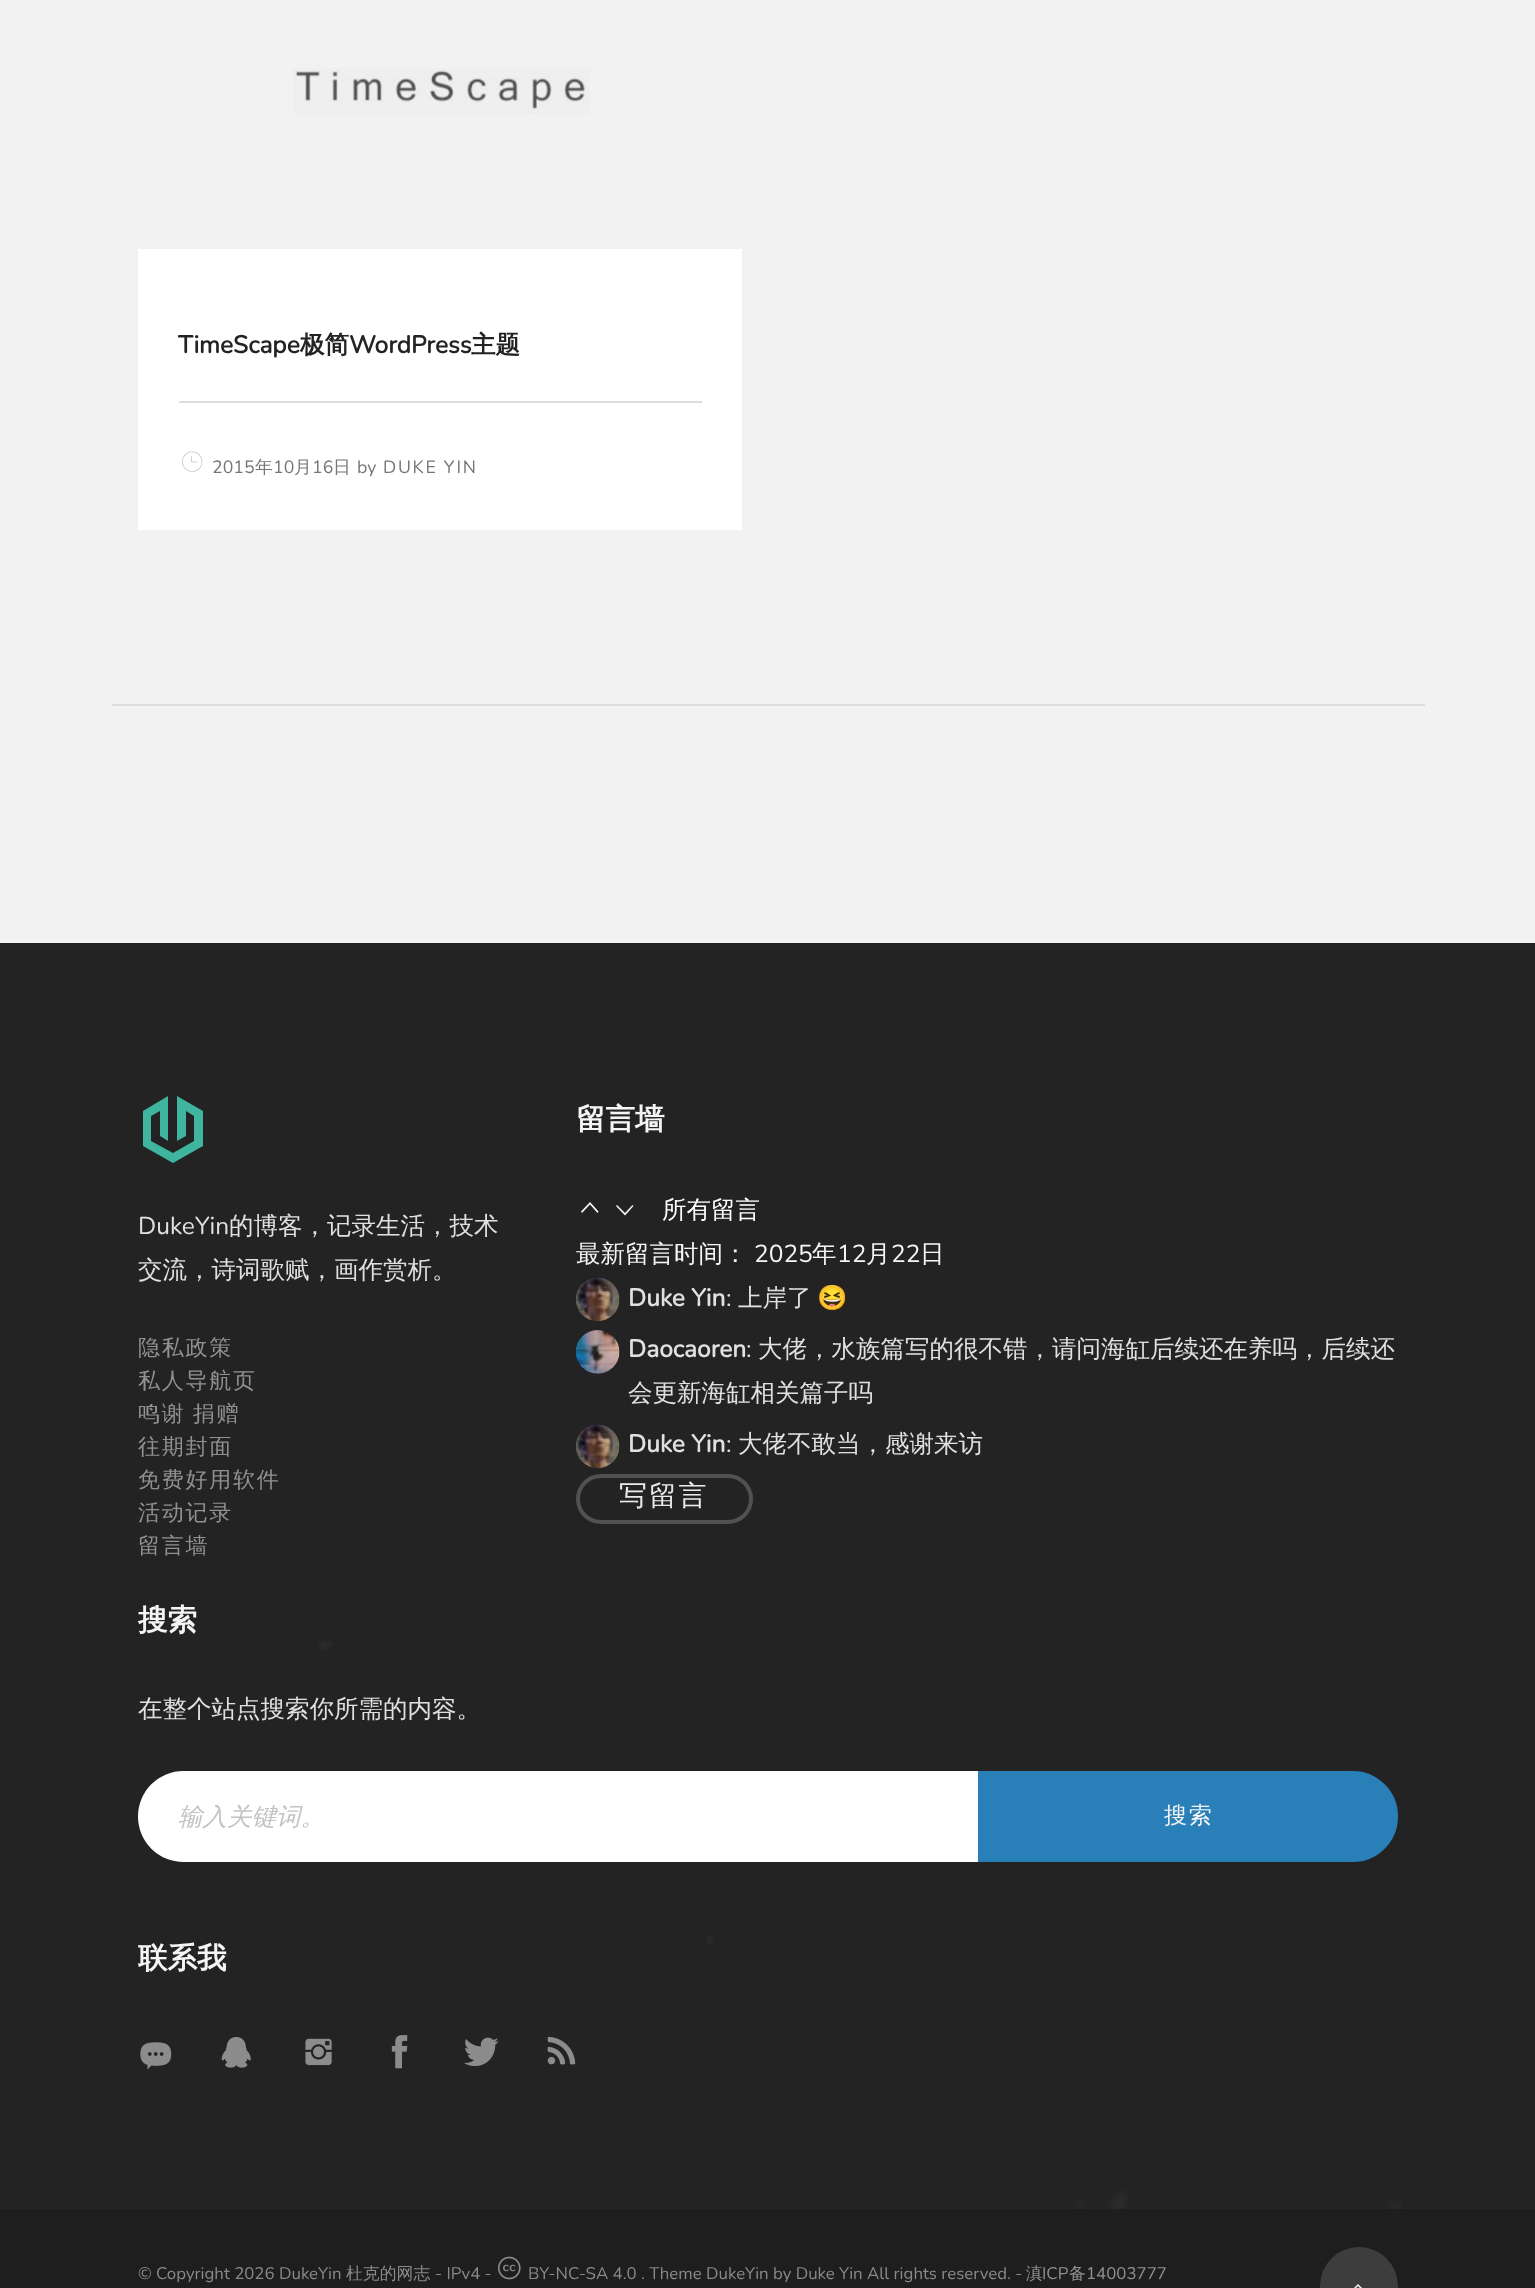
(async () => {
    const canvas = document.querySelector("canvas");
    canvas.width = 1535;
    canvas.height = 2288;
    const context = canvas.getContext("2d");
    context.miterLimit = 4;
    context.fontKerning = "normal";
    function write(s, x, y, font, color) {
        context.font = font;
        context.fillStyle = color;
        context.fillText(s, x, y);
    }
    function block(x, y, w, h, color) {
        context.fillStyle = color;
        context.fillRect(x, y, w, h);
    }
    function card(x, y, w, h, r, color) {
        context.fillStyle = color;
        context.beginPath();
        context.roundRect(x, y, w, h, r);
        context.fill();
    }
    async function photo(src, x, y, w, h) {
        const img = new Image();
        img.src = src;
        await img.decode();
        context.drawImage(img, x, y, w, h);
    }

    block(0, 0, 1535, 2288, "rgb(242, 242, 242)");
    await photo("media/1.png", 293, 68, 297, 47);
    block(138, 249, 604, 281, "rgb(255, 255, 255)");
    write("TimeScape", 178, 353, "bold 24.5px Nunito", "rgb(35, 35, 35)");
    write("极简", 300, 353, "bold 24.5px WenQuanYi Zen Hei", "rgb(35, 35, 35)");
    write("WordPress", 349, 353, "bold 24.5px Nunito", "rgb(35, 35, 35)");
    write("主题", 471, 353, "bold 24.5px WenQuanYi Zen Hei", "rgb(35, 35, 35)");
    block(179, 401, 523, 2, "rgb(221, 221, 221)");
    await photo("media/2.png", 182, 451, 21, 21);
    write("2015", 212, 473, "200 17.75px Nunito", "rgb(118, 118, 118)");
    write("年", 255, 473, "500 17.75px WenQuanYi Zen Hei", "rgb(118, 118, 118)");
    write("10", 273, 473, "200 17.75px Nunito", "rgb(118, 118, 118)");
    write("月", 294, 473, "500 17.75px WenQuanYi Zen Hei", "rgb(118, 118, 118)");
    write("16", 312, 473, "200 17.75px Nunito", "rgb(118, 118, 118)");
    write("日", 333, 473, "500 17.75px WenQuanYi Zen Hei", "rgb(118, 118, 118)");
    write("by", 357, 473, "200 17.75px Nunito", "rgb(118, 118, 118)");
    context.letterSpacing = "1.75px";
    write("DUKE YIN", 383, 473, "200 17.75px Nunito", "rgb(118, 118, 118)");
    block(112, 704, 1313, 2, "rgb(221, 221, 221)");
    block(0, 943, 1535, 1266, "rgb(35, 35, 35)");
    context.fillStyle = "rgb(63, 180, 158)";
    context.beginPath();
    context.moveTo(160, 1136);
    context.lineTo(168, 1141);
    context.lineTo(168, 1096);
    context.lineTo(143, 1111);
    context.lineTo(143, 1146);
    context.lineTo(173, 1163);
    context.lineTo(203, 1146);
    context.lineTo(203, 1111);
    context.lineTo(177, 1096);
    context.lineTo(177, 1141);
    context.lineTo(186, 1136);
    context.lineTo(186, 1111);
    context.lineTo(194, 1116);
    context.lineTo(194, 1141);
    context.lineTo(173, 1153);
    context.lineTo(151, 1141);
    context.lineTo(151, 1116);
    context.lineTo(160, 1111);
    context.closePath();
    context.fill();
    context.letterSpacing = "0px";
    write("DukeYin", 138, 1234, "200 24.5px Nunito", "rgb(224, 224, 224)");
    write("的博客，记录生活，技术", 229, 1234, "500 24.5px WenQuanYi Zen Hei", "rgb(224, 224, 224)");
    write("交流，诗词歌赋，画作赏析。", 138, 1278, "500 24.5px WenQuanYi Zen Hei", "rgb(224, 224, 224)");
    context.letterSpacing = "1.75px";
    write("隐私政策", 138, 1355, "500 22px WenQuanYi Zen Hei", "rgb(145, 145, 145)");
    write("私人导航页", 138, 1388, "500 22px WenQuanYi Zen Hei", "rgb(145, 145, 145)");
    context.wordSpacing = "-1px";
    write("鸣谢 捐赠", 138, 1421, "500 22px WenQuanYi Zen Hei", "rgb(145, 145, 145)");
    context.wordSpacing = "0px";
    write("往期封面", 138, 1454, "500 22px WenQuanYi Zen Hei", "rgb(145, 145, 145)");
    write("免费好用软件", 138, 1487, "500 22px WenQuanYi Zen Hei", "rgb(145, 145, 145)");
    write("活动记录", 138, 1520, "500 22px WenQuanYi Zen Hei", "rgb(145, 145, 145)");
    write("留言墙", 138, 1553, "500 22px WenQuanYi Zen Hei", "rgb(145, 145, 145)");
    context.letterSpacing = "0px";
    write("留言墙", 576, 1129, "bold 29.5px WenQuanYi Zen Hei", "rgb(245, 245, 245)");
    context.beginPath();
    context.moveTo(597.5, 1213);
    context.lineTo(598.5, 1211.5);
    context.lineTo(590, 1202);
    context.lineTo(581, 1211.5);
    context.lineTo(582, 1213);
    context.lineTo(590, 1204.5);
    context.closePath();
    context.moveTo(632.5, 1205);
    context.lineTo(633.5, 1206);
    context.lineTo(625, 1215.5);
    context.lineTo(616, 1206);
    context.lineTo(617, 1205);
    context.lineTo(625, 1213);
    context.closePath();
    context.fill();
    write("所有留言", 662, 1218, "500 24.5px WenQuanYi Zen Hei", "rgb(255, 255, 255)");
    write("最新留言时间：", 576, 1262, "500 24.5px WenQuanYi Zen Hei", "rgb(245, 245, 245)");
    write("2025", 754, 1262, "200 24.5px Nunito", "rgb(245, 245, 245)");
    write("年", 812, 1262, "500 24.5px WenQuanYi Zen Hei", "rgb(245, 245, 245)");
    write("12", 837, 1262, "200 24.5px Nunito", "rgb(245, 245, 245)");
    write("月", 866, 1262, "500 24.5px WenQuanYi Zen Hei", "rgb(245, 245, 245)");
    write("22", 891, 1262, "200 24.5px Nunito", "rgb(245, 245, 245)");
    write("日", 920, 1262, "500 24.5px WenQuanYi Zen Hei", "rgb(245, 245, 245)");
    await photo("media/3.png", 576, 1277, 44, 44);
    write("Duke Yin", 628, 1306, "bold 24.5px Nunito", "rgb(224, 224, 224)");
    write(":", 726, 1306, "200 24.5px Nunito", "rgb(224, 224, 224)");
    write("上岸了", 738, 1306, "500 24.5px WenQuanYi Zen Hei", "rgb(224, 224, 224)");
    write("😆", 817, 1306, "24.5px Noto Color Emoji", "rgb(224, 224, 224)");
    await photo("media/4.png", 576, 1330, 44, 44);
    write("Daocaoren", 628, 1357, "bold 24.5px Nunito", "rgb(224, 224, 224)");
    write(":", 746, 1357, "200 24.5px Nunito", "rgb(224, 224, 224)");
    write("大佬，水族篇写的很不错，请问海缸后续还在养吗，后续还", 758, 1357, "500 24.5px WenQuanYi Zen Hei", "rgb(224, 224, 224)");
    write("会更新海缸相关篇子吗", 628, 1401, "500 24.5px WenQuanYi Zen Hei", "rgb(224, 224, 224)");
    await photo("media/3.png", 576, 1424, 44, 44);
    write("Duke Yin", 628, 1452, "bold 24.5px Nunito", "rgb(224, 224, 224)");
    write(":", 726, 1452, "200 24.5px Nunito", "rgb(224, 224, 224)");
    write("大佬不敢当，感谢来访", 738, 1452, "500 24.5px WenQuanYi Zen Hei", "rgb(224, 224, 224)");
    context.beginPath();
    context.roundRect(578, 1476, 173, 46, 23);
    context.strokeStyle = "rgb(81, 81, 81)";
    context.lineWidth = 4;
    context.stroke();
    context.letterSpacing = "1.75px";
    write("写留言", 619, 1505, "500 28px WenQuanYi Zen Hei", "rgb(233, 233, 233)");
    context.letterSpacing = "0px";
    write("搜索", 138, 1630, "bold 29.5px WenQuanYi Zen Hei", "rgb(245, 245, 245)");
    await photo("media/12.png", 319, 1641, 1084, 568);
    write("在整个站点搜索你所需的内容。", 138, 1717, "500 24.5px WenQuanYi Zen Hei", "rgb(224, 224, 224)");
    context.fillStyle = "rgb(255, 255, 255)";
    context.beginPath();
    context.roundRect(138, 1771, 840, 91, [45.5, 0, 0, 45.5]);
    context.fill();
    write("输入关键词。", 178, 1825, "italic 500 24.5px WenQuanYi Zen Hei", "rgb(195, 195, 195)");
    context.fillStyle = "rgb(41, 127, 184)";
    context.beginPath();
    context.roundRect(980, 1773, 416, 87, [0, 43.5, 43.5, 0]);
    context.fill();
    context.strokeStyle = "rgb(41, 127, 184)";
    context.stroke();
    context.letterSpacing = "1.75px";
    write("搜索", 1164, 1823, "500 23px WenQuanYi Zen Hei", "rgb(245, 245, 245)");
    context.letterSpacing = "0px";
    write("联系我", 138, 1968, "bold 29.5px WenQuanYi Zen Hei", "rgb(245, 245, 245)");
    await photo("media/5.png", 140, 2042, 32, 28);
    await photo("media/6.png", 221, 2037, 30, 31);
    await photo("media/7.png", 305, 2038, 27, 28);
    await photo("media/8.png", 391, 2035, 17, 34);
    await photo("media/9.png", 464, 2037, 35, 30);
    await photo("media/10.png", 547, 2036, 29, 29);
    block(0, 2209, 1535, 79, "rgb(30, 30, 30)");
    write("© Copyright 2026 DukeYin", 138, 2279, "200 16.85px Nunito", "rgb(138, 138, 138)");
    write("杜克的网志", 346, 2279, "500 16.85px WenQuanYi Zen Hei", "rgb(138, 138, 138)");
    write("- IPv4 -", 435, 2279, "200 16.85px Nunito", "rgb(138, 138, 138)");
    await photo("media/11.png", 497, 2256, 24, 24);
    write("BY-NC-SA 4.0 . Theme DukeYin by Duke Yin All rights reserved. -", 528, 2279, "200 16.85px Nunito", "rgb(138, 138, 138)");
    write("滇", 1026, 2279, "500 16.85px WenQuanYi Zen Hei", "rgb(145, 145, 145)");
    write("ICP", 1042, 2279, "200 16.85px Nunito", "rgb(145, 145, 145)");
    write("备", 1069, 2279, "500 16.85px WenQuanYi Zen Hei", "rgb(145, 145, 145)");
    write("14003777", 1086, 2279, "200 16.85px Nunito", "rgb(145, 145, 145)");
    card(1320, 2247, 78, 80, 39, "rgb(61, 61, 61)");
    context.fillStyle = "rgb(245, 245, 245)";
    context.beginPath();
    context.moveTo(1365.5, 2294);
    context.lineTo(1367, 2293);
    context.lineTo(1358, 2284);
    context.lineTo(1349, 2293);
    context.lineTo(1350.5, 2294);
    context.lineTo(1358, 2286);
    context.closePath();
    context.fill();
})();
